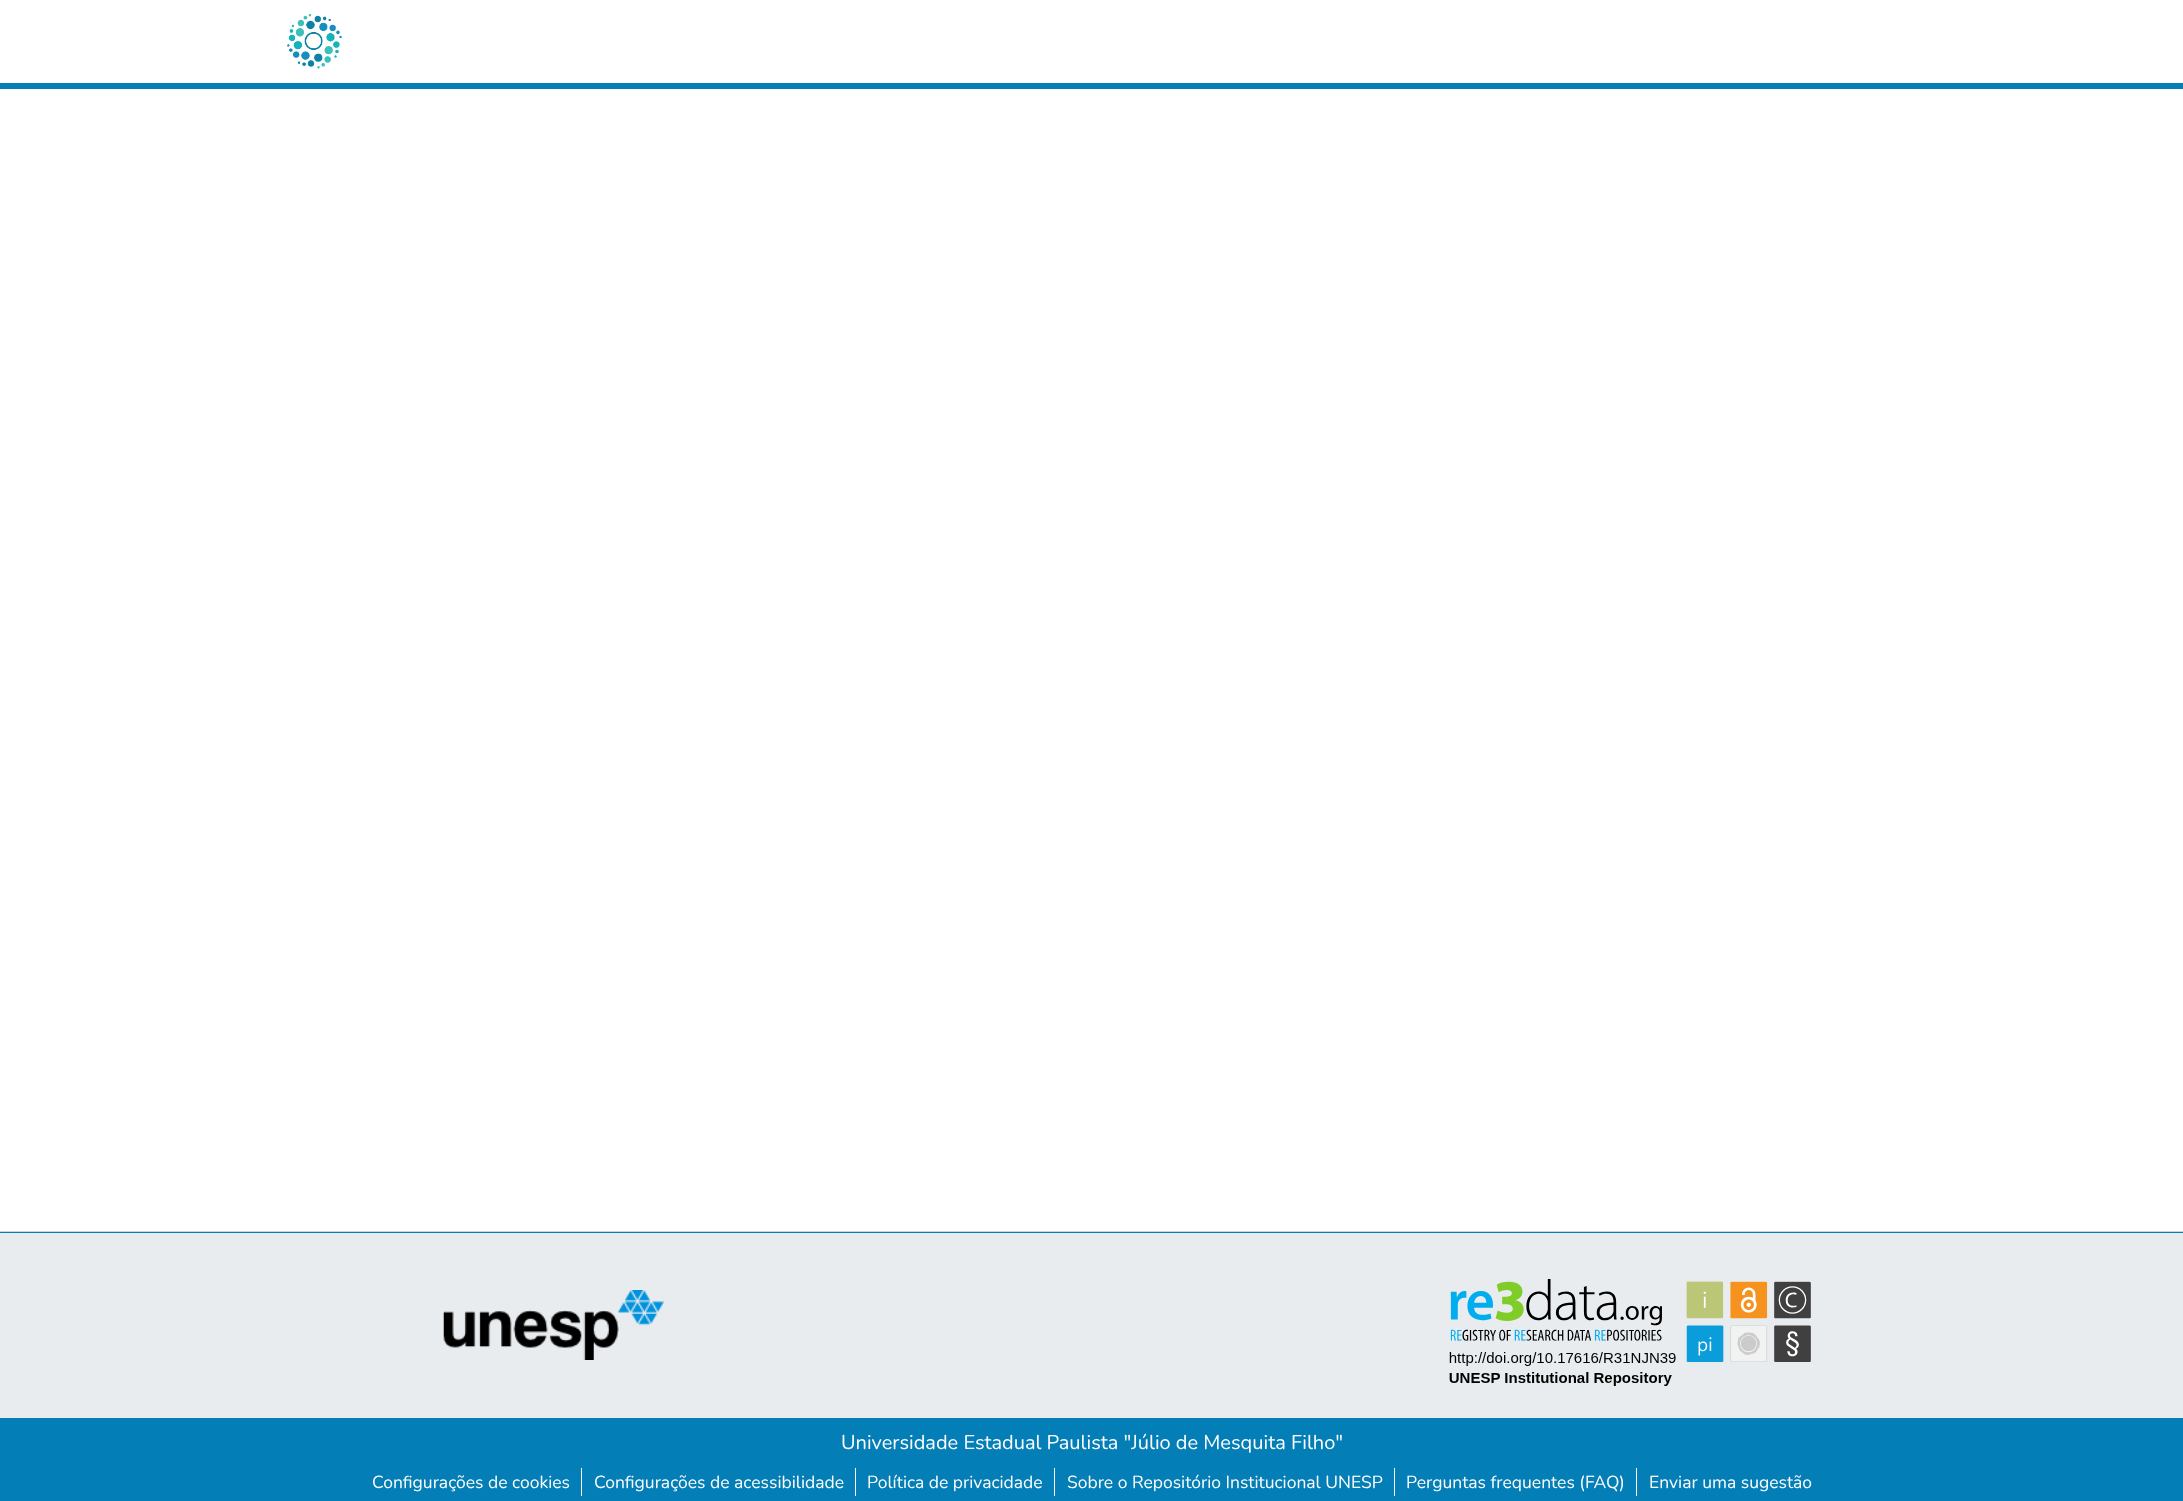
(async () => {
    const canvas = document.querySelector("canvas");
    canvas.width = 2183;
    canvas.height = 1501;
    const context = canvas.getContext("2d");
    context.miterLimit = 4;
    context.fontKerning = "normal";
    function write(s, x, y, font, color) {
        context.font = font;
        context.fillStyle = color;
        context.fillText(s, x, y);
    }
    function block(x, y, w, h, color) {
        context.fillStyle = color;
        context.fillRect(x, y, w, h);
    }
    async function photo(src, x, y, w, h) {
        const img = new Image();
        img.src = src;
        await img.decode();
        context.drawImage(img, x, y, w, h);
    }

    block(0, 0, 2183, 1501, "rgb(255, 255, 255)");
    block(0, 83, 2183, 6, "rgb(3, 126, 182)");
    await photo("media/1.png", 287, 14, 55, 55);
    block(0, 1232, 2183, 269, "rgb(3, 126, 182)");
    block(0, 1231, 2183, 1, "rgb(206, 212, 218)");
    block(0, 1233, 2183, 185, "rgb(233, 236, 239)");
    await photo("media/2.png", 443, 1290, 221, 70);
    await photo("media/3.png", 1449, 1279, 362, 107);
    write("Universidade Estadual Paulista \"Júlio de Mesquita Filho\"", 841, 1449, "20px Nunito", "rgb(255, 255, 255)");
    write("Configurações de cookies", 372, 1488, "17.5px Nunito", "rgb(255, 255, 255)");
    block(581, 1468, 1, 28, "rgb(255, 255, 255)");
    write("Configurações de acessibilidade", 594, 1488, "17.5px Nunito", "rgb(255, 255, 255)");
    block(855, 1468, 1, 28, "rgb(255, 255, 255)");
    write("Política de privacidade", 867, 1488, "17.5px Nunito", "rgb(255, 255, 255)");
    block(1054, 1468, 1, 28, "rgb(255, 255, 255)");
    write("Sobre o Repositório Institucional UNESP", 1067, 1488, "17.5px Nunito", "rgb(255, 255, 255)");
    block(1394, 1468, 1, 28, "rgb(255, 255, 255)");
    write("Perguntas frequentes (FAQ)", 1406, 1488, "17.5px Nunito", "rgb(255, 255, 255)");
    block(1636, 1468, 1, 28, "rgb(255, 255, 255)");
    write("Enviar uma sugestão", 1649, 1488, "17.5px Nunito", "rgb(255, 255, 255)");
})();
